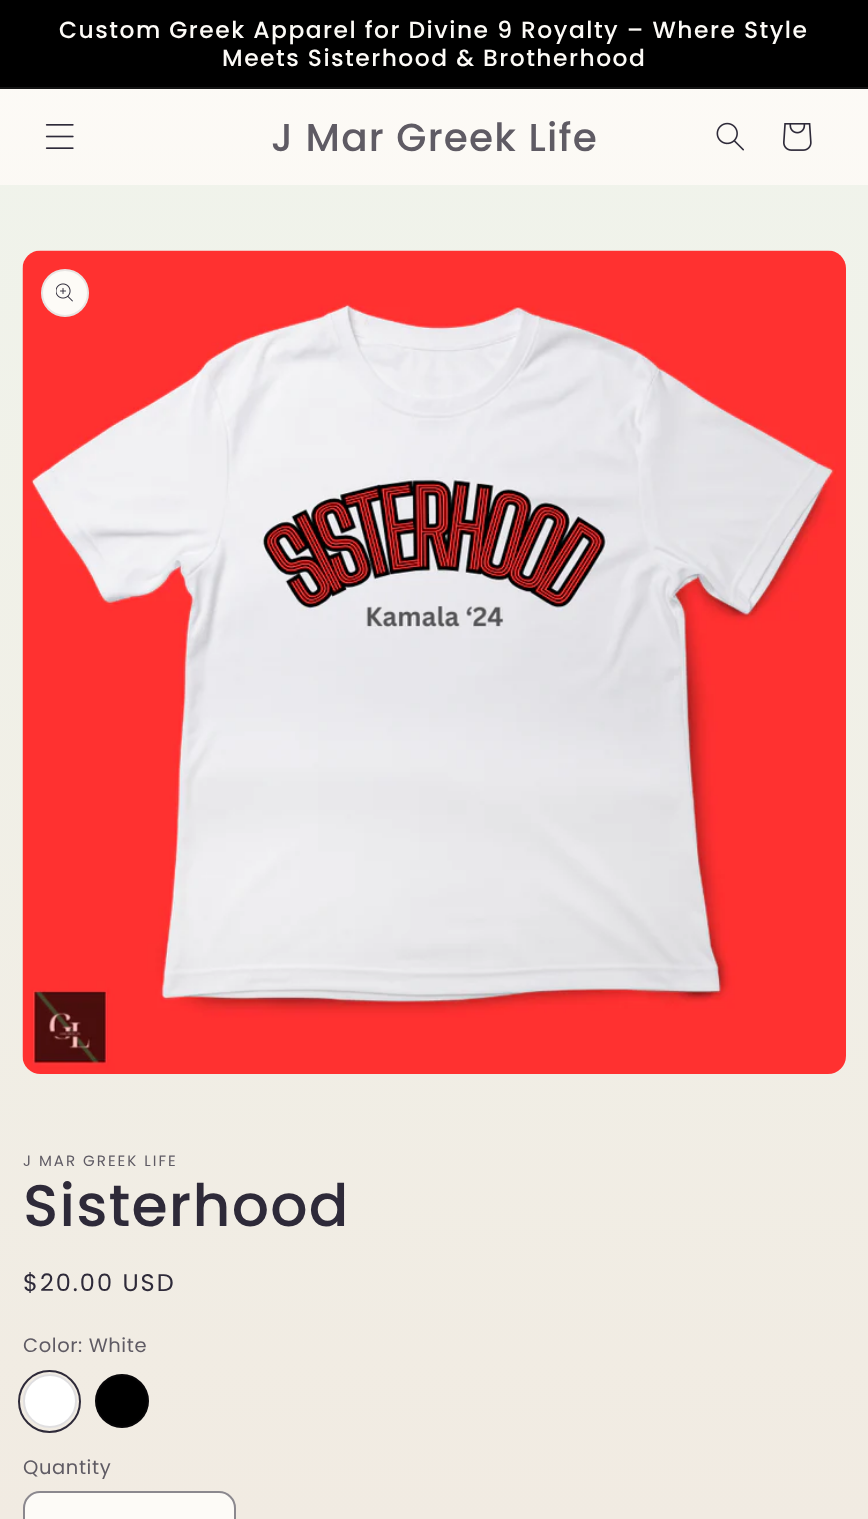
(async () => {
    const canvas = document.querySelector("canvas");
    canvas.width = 868;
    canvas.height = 1519;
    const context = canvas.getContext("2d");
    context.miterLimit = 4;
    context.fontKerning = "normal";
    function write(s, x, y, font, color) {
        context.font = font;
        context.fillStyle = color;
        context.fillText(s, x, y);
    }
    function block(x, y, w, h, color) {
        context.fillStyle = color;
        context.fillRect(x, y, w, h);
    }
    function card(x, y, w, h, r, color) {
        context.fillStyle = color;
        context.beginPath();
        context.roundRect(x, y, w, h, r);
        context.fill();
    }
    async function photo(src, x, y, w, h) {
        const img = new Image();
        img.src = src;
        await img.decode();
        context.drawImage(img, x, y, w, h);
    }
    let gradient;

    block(0, 0, 868, 1519, "rgb(255, 255, 255)");
    gradient = context.createLinearGradient(434, 0, 434, 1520);
    gradient.addColorStop(0, "rgb(240, 244, 236)");
    gradient.addColorStop(1, "rgb(241, 235, 226)");
    context.fillStyle = gradient;
    context.fillRect(0, 185, 868, 27);
    block(0, 0, 868, 87, "rgb(0, 0, 0)");
    block(0, 87, 868, 2, "rgb(20, 20, 20)");
    context.letterSpacing = "1.5px";
    write("Custom Greek Apparel for Divine 9 Royalty – Where Style", 59, 38, "500 23.4px Poppins", "rgb(253, 251, 247)");
    write("Meets Sisterhood & Brotherhood", 222, 66, "500 23.4px Poppins", "rgb(253, 251, 247)");
    gradient = context.createLinearGradient(434, 0, 434, 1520);
    gradient.addColorStop(0, "rgb(253, 251, 247)");
    gradient.addColorStop(1, "rgb(241, 235, 226)");
    context.fillStyle = gradient;
    context.fillRect(0, 89, 868, 96);
    await photo("media/1.png", 45, 124, 29, 25);
    context.letterSpacing = "1.2px";
    write("J Mar Greek Life", 271, 151, "500 39px Poppins", "rgb(95, 91, 100)");
    await photo("media/2.png", 716, 122, 28, 29);
    await photo("media/3.png", 783, 123, 29, 28);
    gradient = context.createLinearGradient(434, 0, 434, 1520);
    gradient.addColorStop(0, "rgb(240, 244, 236)");
    gradient.addColorStop(1, "rgb(241, 235, 226)");
    context.fillStyle = gradient;
    context.fillRect(0, 212, 868, 1307);
    await photo("media/4.png", 22, 250, 824, 824);
    context.fillStyle = "rgb(253, 251, 247)";
    context.beginPath();
    context.arc(65, 293, 24, 0, Math.PI * 2);
    context.fill();
    context.beginPath();
    context.arc(65, 293, 23, 0, Math.PI * 2);
    context.strokeStyle = "rgba(46, 42, 57, 0.1)";
    context.lineWidth = 2;
    context.stroke();
    await photo("media/5.png", 56, 283, 17, 19);
    context.letterSpacing = "2px";
    write("J MAR GREEK LIFE", 23, 1166, "15px Poppins", "rgb(95, 91, 100)");
    context.letterSpacing = "1.2px";
    write("Sisterhood", 23, 1226, "500 58.5px Poppins", "rgb(46, 42, 57)");
    context.letterSpacing = "2px";
    write("$20.00 USD", 23, 1291, "24px Poppins", "rgb(46, 42, 57)");
    context.letterSpacing = "0.6px";
    write("Color: White", 23, 1352, "19.5px Poppins", "rgb(95, 91, 100)");
    context.fillStyle = "rgb(255, 255, 255)";
    context.beginPath();
    context.arc(50, 1401, 27, 0, Math.PI * 2);
    context.fill();
    context.beginPath();
    context.arc(50, 1401, 26, 0, Math.PI * 2);
    context.strokeStyle = "rgba(46, 42, 57, 0.15)";
    context.stroke();
    context.beginPath();
    context.arc(49.5, 1401.5, 30.5, 0, Math.PI * 2);
    context.strokeStyle = "rgb(46, 42, 57)";
    context.stroke();
    context.fillStyle = "rgb(0, 0, 0)";
    context.beginPath();
    context.arc(122, 1401, 27, 0, Math.PI * 2);
    context.fill();
    context.beginPath();
    context.arc(122, 1401, 26, 0, Math.PI * 2);
    context.strokeStyle = "rgba(46, 42, 57, 0.15)";
    context.stroke();
    write("Quantity", 23, 1474, "19.5px Poppins", "rgb(95, 91, 100)");
    card(23, 1491, 213, 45, 17, "rgb(253, 251, 247)");
    context.beginPath();
    context.roundRect(24, 1492, 211, 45, 16);
    context.strokeStyle = "rgba(46, 42, 57, 0.55)";
    context.stroke();
})();
